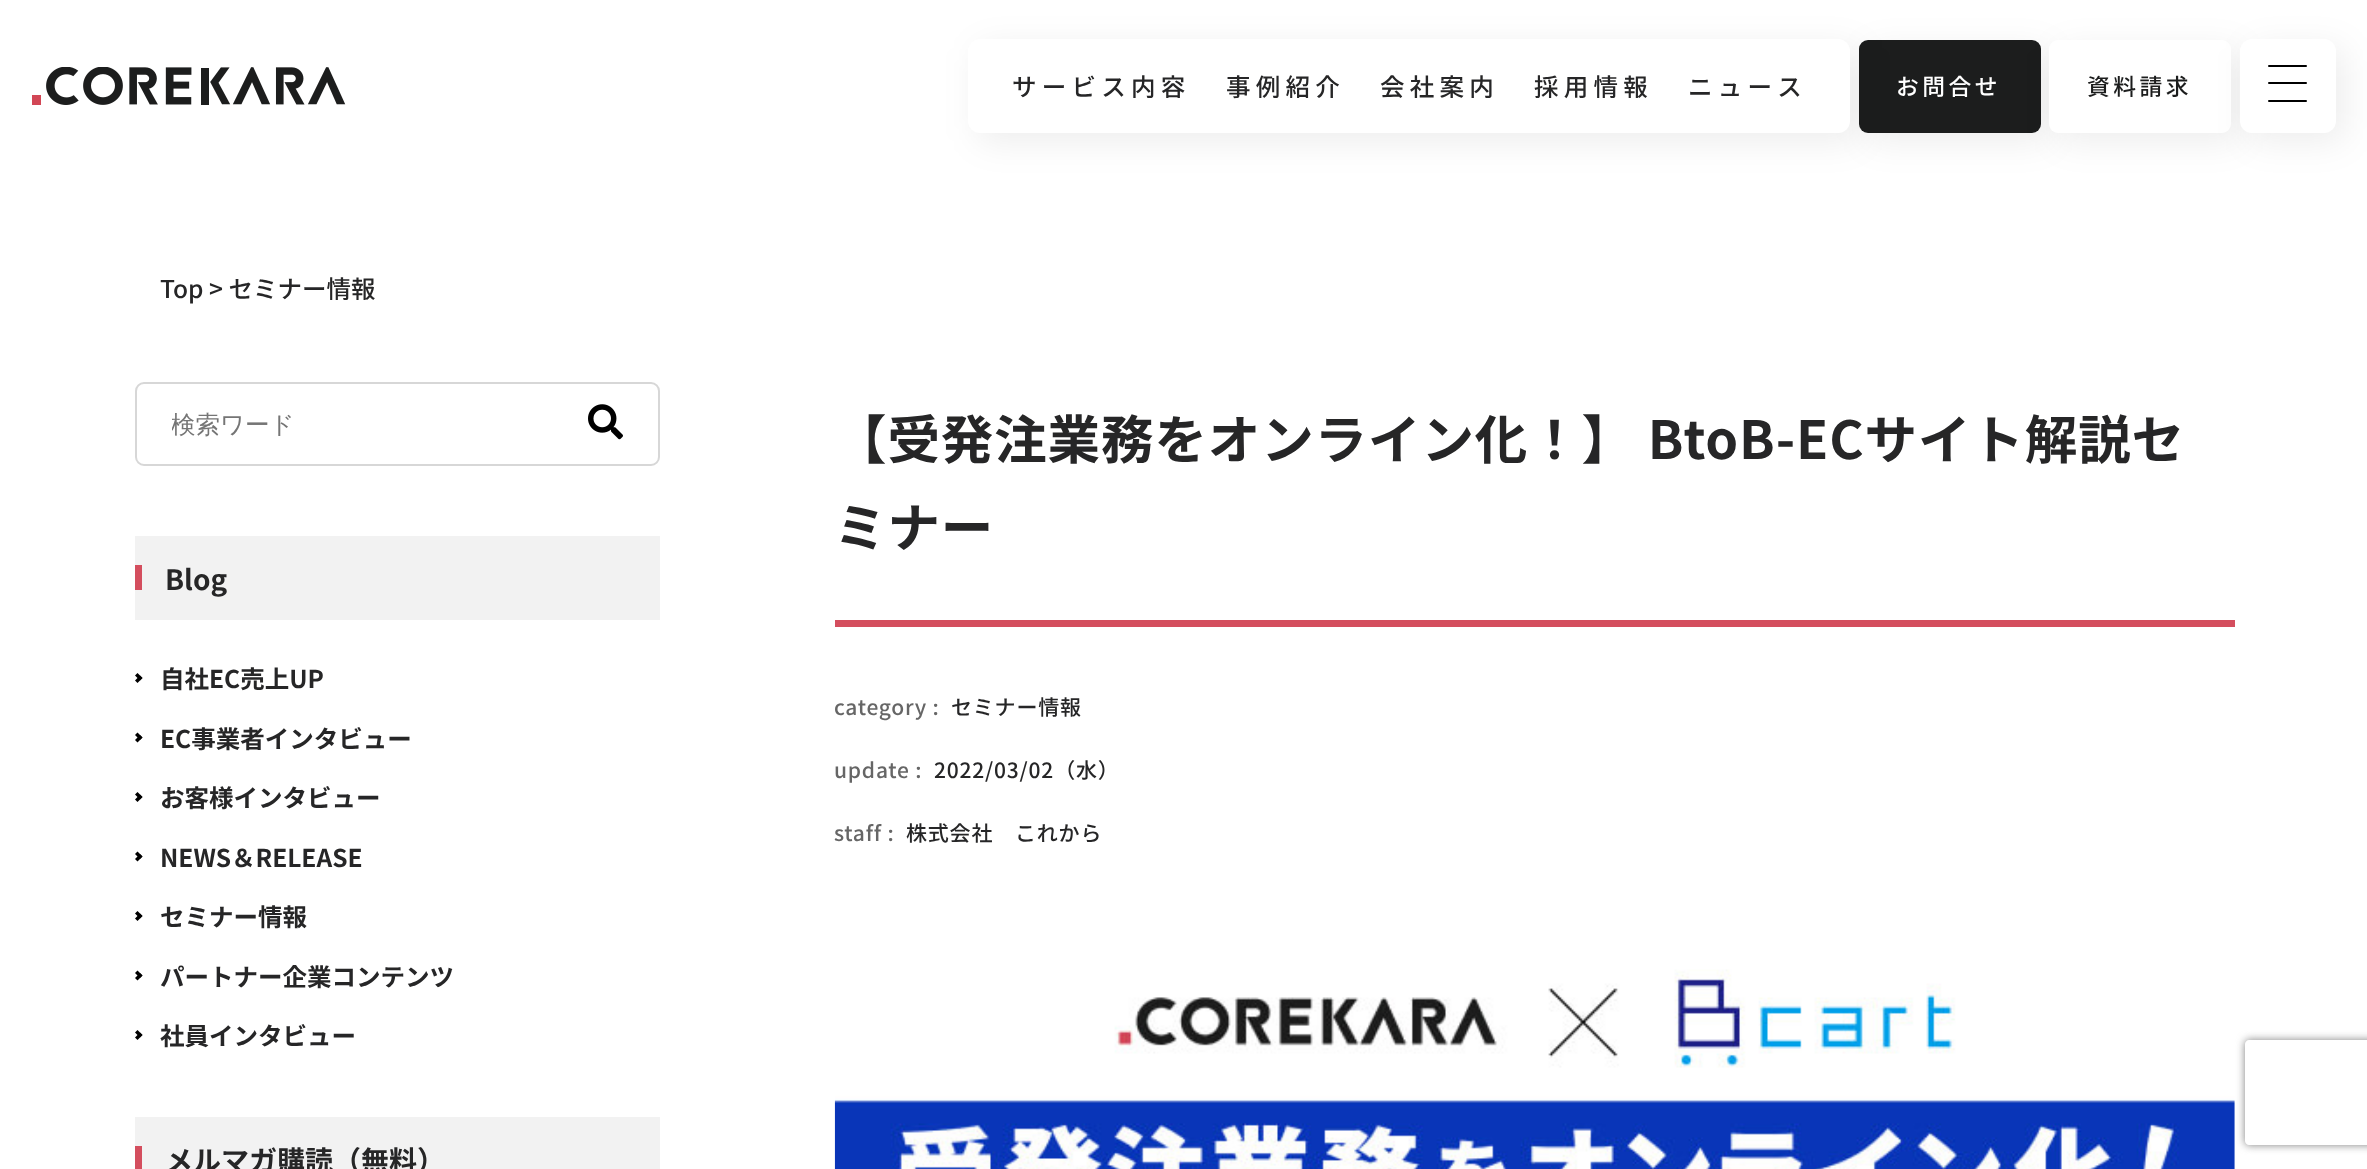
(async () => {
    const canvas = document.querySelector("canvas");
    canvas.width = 2367;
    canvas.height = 1169;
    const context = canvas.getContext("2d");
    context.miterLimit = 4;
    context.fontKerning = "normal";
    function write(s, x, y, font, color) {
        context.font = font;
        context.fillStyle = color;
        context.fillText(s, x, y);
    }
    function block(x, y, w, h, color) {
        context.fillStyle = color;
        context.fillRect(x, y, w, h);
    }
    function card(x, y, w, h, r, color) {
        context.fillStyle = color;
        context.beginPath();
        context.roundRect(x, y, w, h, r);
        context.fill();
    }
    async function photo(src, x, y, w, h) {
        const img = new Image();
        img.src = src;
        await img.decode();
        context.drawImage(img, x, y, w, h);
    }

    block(0, 0, 2367, 1169, "rgb(255, 255, 255)");
    await photo("media/1.png", 32, 67, 314, 38);
    context.fillStyle = "rgba(0, 0, 0, 0.07)";
    context.filter = "blur(17.5px)";
    context.beginPath();
    context.roundRect(1867, 49, 182, 93, 9);
    context.fill();
    context.filter = "none";
    card(1859, 40, 182, 93, 9, "rgb(28, 29, 29)");
    context.fillStyle = "rgba(0, 0, 0, 0.07)";
    context.filter = "blur(17.5px)";
    context.beginPath();
    context.roundRect(977, 47, 882, 95, 12);
    context.fill();
    context.filter = "none";
    card(968, 39, 882, 94, 12, "rgb(255, 255, 255)");
    context.letterSpacing = "5.25px";
    write("サービス内容", 1012, 96, "500 24.5px Noto Sans JP", "rgb(38, 38, 39)");
    write("事例紹介", 1226, 96, "500 24.5px Noto Sans JP", "rgb(38, 38, 39)");
    write("会社案内", 1380, 96, "500 24.5px Noto Sans JP", "rgb(38, 38, 39)");
    write("採用情報", 1534, 96, "500 24.5px Noto Sans JP", "rgb(38, 38, 39)");
    write("ニュース", 1688, 96, "500 24.5px Noto Sans JP", "rgb(38, 38, 39)");
    context.letterSpacing = "3.5px";
    write("お問合せ", 1896, 95, "500 22.75px Noto Sans JP", "rgb(255, 255, 255)");
    context.fillStyle = "rgba(0, 0, 0, 0.07)";
    context.filter = "blur(17.5px)";
    context.beginPath();
    context.roundRect(2058, 49, 182, 93, 9);
    context.fill();
    context.filter = "none";
    card(2049, 40, 182, 93, 9, "rgb(255, 255, 255)");
    write("資料請求", 2087, 95, "500 22.75px Noto Sans JP", "rgb(28, 29, 29)");
    context.fillStyle = "rgba(0, 0, 0, 0.07)";
    context.filter = "blur(17.5px)";
    context.beginPath();
    context.roundRect(2249, 47, 96, 95, 12);
    context.fill();
    context.filter = "none";
    card(2240, 39, 96, 94, 12, "rgb(255, 255, 255)");
    card(2268, 82, 39, 2, 1, "rgb(0, 0, 0)");
    card(2268, 65, 39, 2, 1, "rgb(0, 0, 0)");
    card(2268, 100, 39, 2, 1, "rgb(0, 0, 0)");
    context.letterSpacing = "0px";
    write("Top > セミナー情報", 160, 298, "500 24.5px Noto Sans JP", "rgb(38, 38, 39)");
    context.beginPath();
    context.roundRect(136, 383, 523, 82, 8);
    context.strokeStyle = "rgb(215, 215, 215)";
    context.lineWidth = 2;
    context.stroke();
    context.save();
    context.beginPath();
    context.rect(172, 410, 407, 31);
    context.clip();
    write("検索ワード", 171, 433, "500 24.5px WenQuanYi Zen Hei", "rgb(117, 117, 117)");
    context.restore();
    await photo("media/2.png", 588, 404, 35, 36);
    block(135, 536, 525, 84, "rgb(242, 242, 242)");
    block(135, 565, 7, 25, "rgb(212, 78, 94)");
    write("Blog", 165, 590, "bold 28px Noto Sans JP", "rgb(38, 38, 39)");
    context.fillStyle = "rgb(0, 0, 0)";
    context.beginPath();
    context.moveTo(137.5, 673);
    context.lineTo(142.5, 678);
    context.lineTo(140, 680.5);
    context.lineTo(135, 675.5);
    context.closePath();
    context.fill();
    context.beginPath();
    context.moveTo(140, 675.5);
    context.lineTo(142.5, 678);
    context.lineTo(137.5, 683);
    context.lineTo(135, 680.5);
    context.closePath();
    context.fill();
    write("自社EC売上UP", 160, 688, "bold 24.5px Noto Sans JP", "rgb(38, 38, 39)");
    context.fillStyle = "rgb(0, 0, 0)";
    context.beginPath();
    context.moveTo(137.5, 732.5);
    context.lineTo(142.5, 737.5);
    context.lineTo(140, 740);
    context.lineTo(135, 735);
    context.closePath();
    context.fill();
    context.beginPath();
    context.moveTo(140, 735);
    context.lineTo(142.5, 737.5);
    context.lineTo(137.5, 742.5);
    context.lineTo(135, 740);
    context.closePath();
    context.fill();
    write("EC事業者インタビュー", 160, 748, "bold 24.5px Noto Sans JP", "rgb(38, 38, 39)");
    context.fillStyle = "rgb(0, 0, 0)";
    context.beginPath();
    context.moveTo(137.5, 792);
    context.lineTo(142.5, 797);
    context.lineTo(140, 799.5);
    context.lineTo(135, 794.5);
    context.closePath();
    context.fill();
    context.beginPath();
    context.moveTo(140, 794.5);
    context.lineTo(142.5, 797);
    context.lineTo(137.5, 802);
    context.lineTo(135, 799.5);
    context.closePath();
    context.fill();
    write("お客様インタビュー", 160, 807, "bold 24.5px Noto Sans JP", "rgb(38, 38, 39)");
    context.fillStyle = "rgb(0, 0, 0)";
    context.beginPath();
    context.moveTo(137.5, 851.5);
    context.lineTo(142.5, 856.5);
    context.lineTo(140, 859);
    context.lineTo(135, 854);
    context.closePath();
    context.fill();
    context.beginPath();
    context.moveTo(140, 854);
    context.lineTo(142.5, 856.5);
    context.lineTo(137.5, 861.5);
    context.lineTo(135, 859);
    context.closePath();
    context.fill();
    write("NEWS＆RELEASE", 160, 867, "bold 24.5px Noto Sans JP", "rgb(38, 38, 39)");
    context.fillStyle = "rgb(0, 0, 0)";
    context.beginPath();
    context.moveTo(137.5, 911);
    context.lineTo(142.5, 916);
    context.lineTo(140, 918.5);
    context.lineTo(135, 913.5);
    context.closePath();
    context.fill();
    context.beginPath();
    context.moveTo(140, 913.5);
    context.lineTo(142.5, 916);
    context.lineTo(137.5, 921);
    context.lineTo(135, 918.5);
    context.closePath();
    context.fill();
    write("セミナー情報", 160, 926, "bold 24.5px Noto Sans JP", "rgb(38, 38, 39)");
    context.fillStyle = "rgb(0, 0, 0)";
    context.beginPath();
    context.moveTo(137.5, 970.5);
    context.lineTo(142.5, 975.5);
    context.lineTo(140, 978);
    context.lineTo(135, 973);
    context.closePath();
    context.fill();
    context.beginPath();
    context.moveTo(140, 973);
    context.lineTo(142.5, 975.5);
    context.lineTo(137.5, 980.5);
    context.lineTo(135, 978);
    context.closePath();
    context.fill();
    write("パートナー企業コンテンツ", 160, 986, "bold 24.5px Noto Sans JP", "rgb(38, 38, 39)");
    context.fillStyle = "rgb(0, 0, 0)";
    context.beginPath();
    context.moveTo(137.5, 1030);
    context.lineTo(142.5, 1035);
    context.lineTo(140, 1037.5);
    context.lineTo(135, 1032.5);
    context.closePath();
    context.fill();
    context.beginPath();
    context.moveTo(140, 1032.5);
    context.lineTo(142.5, 1035);
    context.lineTo(137.5, 1040);
    context.lineTo(135, 1037.5);
    context.closePath();
    context.fill();
    write("社員インタビュー", 160, 1045, "bold 24.5px Noto Sans JP", "rgb(38, 38, 39)");
    block(135, 1117, 525, 52, "rgb(242, 242, 242)");
    block(135, 1146, 7, 23, "rgb(212, 78, 94)");
    write("メルマガ購読（無料）", 165, 1171, "bold 28px Noto Sans JP", "rgb(38, 38, 39)");
    block(835, 620, 1400, 7, "rgb(212, 78, 94)");
    context.letterSpacing = "0.9px";
    write("【受発注業務をオンライン化！】 BtoB-ECサイト解説セ", 834, 459, "bold 52.5px Noto Sans JP", "rgb(38, 38, 39)");
    write("ミナー", 834, 547, "bold 52.5px Noto Sans JP", "rgb(38, 38, 39)");
    context.letterSpacing = "0.8px";
    write("category :", 834, 715, "500 21px Noto Sans JP", "rgb(102, 102, 102)");
    write("セミナー情報", 951, 715, "500 21px Noto Sans JP", "rgb(38, 38, 39)");
    write("update :", 834, 778, "500 21px Noto Sans JP", "rgb(102, 102, 102)");
    write("2022/03/02（水）", 934, 778, "500 21px Noto Sans JP", "rgb(38, 38, 39)");
    write("staff :", 834, 841, "500 21px Noto Sans JP", "rgb(102, 102, 102)");
    write("株式会社　これから", 906, 841, "500 21px Noto Sans JP", "rgb(38, 38, 39)");
    await photo("media/3.png", 834, 969, 1401, 200);
    context.save();
    context.beginPath();
    context.moveTo(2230, 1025);
    context.lineTo(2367, 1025);
    context.lineTo(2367, 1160);
    context.lineTo(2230, 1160);
    context.closePath();
    context.moveTo(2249, 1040);
    context.lineTo(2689, 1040);
    context.bezierCurveTo(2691, 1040, 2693, 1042, 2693, 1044);
    context.lineTo(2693, 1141);
    context.bezierCurveTo(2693, 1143, 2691, 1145, 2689, 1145);
    context.lineTo(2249, 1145);
    context.bezierCurveTo(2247, 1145, 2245, 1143, 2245, 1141);
    context.lineTo(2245, 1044);
    context.bezierCurveTo(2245, 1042, 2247, 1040, 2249, 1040);
    context.closePath();
    context.clip("evenodd");
    context.fillStyle = "rgb(128, 128, 128)";
    context.filter = "blur(4.5px)";
    context.beginPath();
    context.roundRect(2245, 1040, 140, 105, 4);
    context.fill();
    context.filter = "none";
    context.restore();
})();
